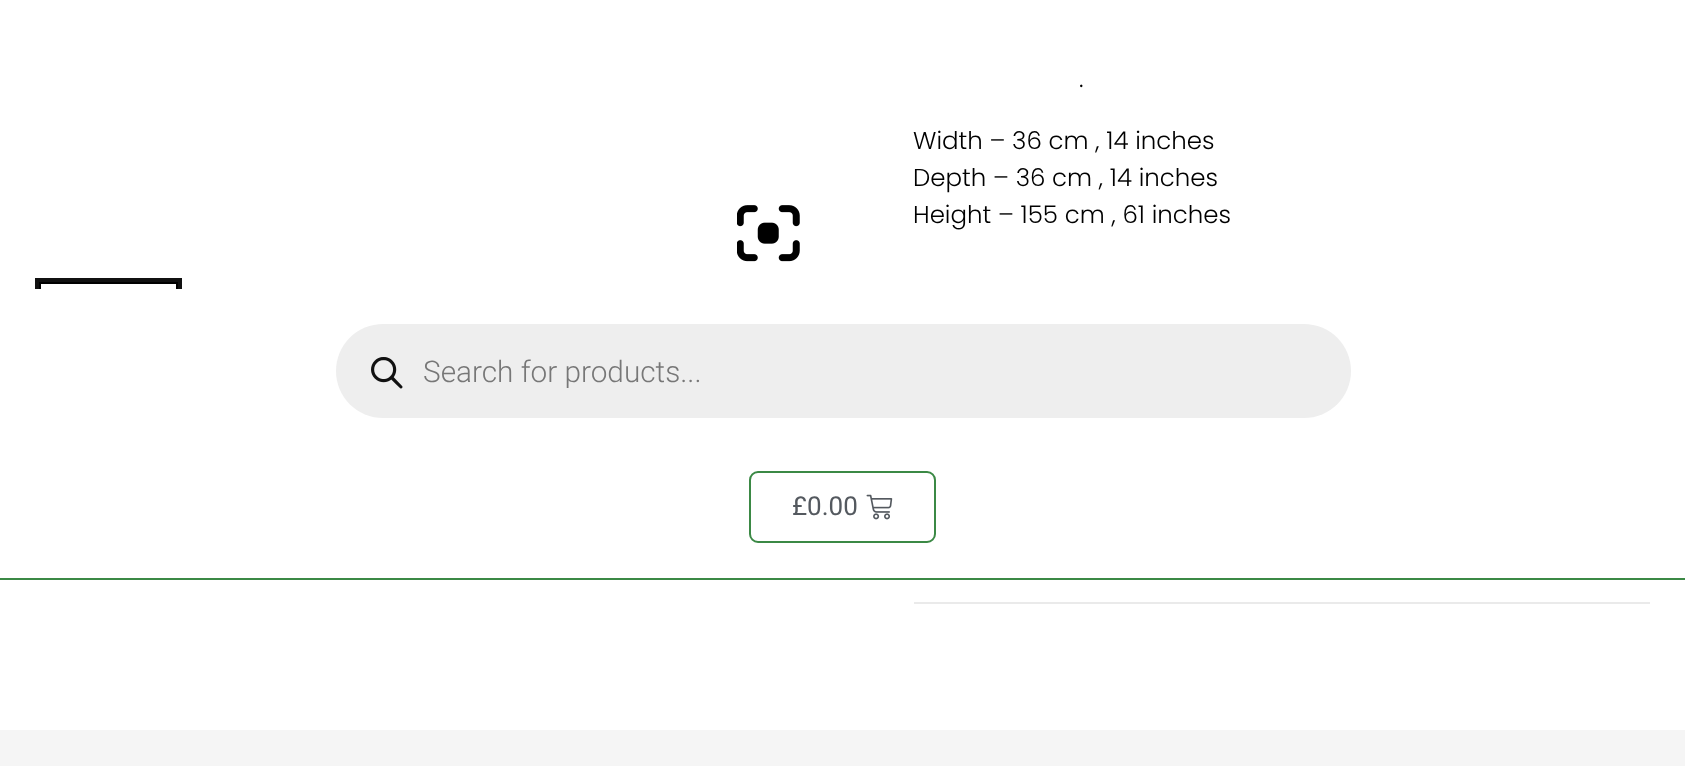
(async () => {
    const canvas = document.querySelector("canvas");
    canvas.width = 1685;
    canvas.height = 766;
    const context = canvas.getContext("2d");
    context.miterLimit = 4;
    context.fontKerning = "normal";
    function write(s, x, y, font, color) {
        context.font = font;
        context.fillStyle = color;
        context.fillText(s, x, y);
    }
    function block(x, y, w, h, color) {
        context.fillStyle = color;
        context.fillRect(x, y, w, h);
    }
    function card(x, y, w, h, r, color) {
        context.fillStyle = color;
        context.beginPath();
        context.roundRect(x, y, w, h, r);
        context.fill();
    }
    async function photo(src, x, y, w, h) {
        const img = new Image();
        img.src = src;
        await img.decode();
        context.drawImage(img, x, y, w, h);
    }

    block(0, 0, 1685, 766, "rgb(255, 255, 255)");
    write(".", 1079, 87, "300 24.5px Poppins", "rgb(0, 0, 0)");
    write("Width – 36 cm , 14 inches", 913, 149, "300 24.5px Poppins", "rgb(0, 0, 0)");
    write("Depth – 36 cm , 14 inches", 913, 186, "300 24.5px Poppins", "rgb(0, 0, 0)");
    write("Height – 155 cm , 61 inches", 913, 223, "300 24.5px Poppins", "rgb(0, 0, 0)");
    block(914, 602, 736, 2, "rgb(234, 234, 234)");
    await photo("media/1.png", 737, 205, 63, 57);
    context.strokeStyle = "rgb(0, 0, 0)";
    context.lineWidth = 4;
    context.strokeRect(39, 282, 139, 203);
    context.strokeStyle = "rgb(17, 17, 17)";
    context.strokeRect(37, 280, 143, 206);
    block(35, 289, 147, 199, "rgb(255, 255, 255)");
    block(0, 578, 1685, 2, "rgb(59, 137, 69)");
    card(336, 324, 1015, 94, 47, "rgb(238, 238, 238)");
    await photo("media/2.png", 371, 357, 32, 32);
    write("Search for products...", 423, 382, "300 29.75px Roboto", "rgb(119, 119, 119)");
    context.beginPath();
    context.roundRect(750, 472, 185, 70, 8);
    context.strokeStyle = "rgb(59, 137, 69)";
    context.lineWidth = 2;
    context.stroke();
    write("£0.00", 792, 515, "26px Roboto", "rgb(84, 89, 95)");
    await photo("media/3.png", 866, 494, 27, 26);
    block(0, 730, 1685, 36, "rgb(245, 245, 245)");
})();
